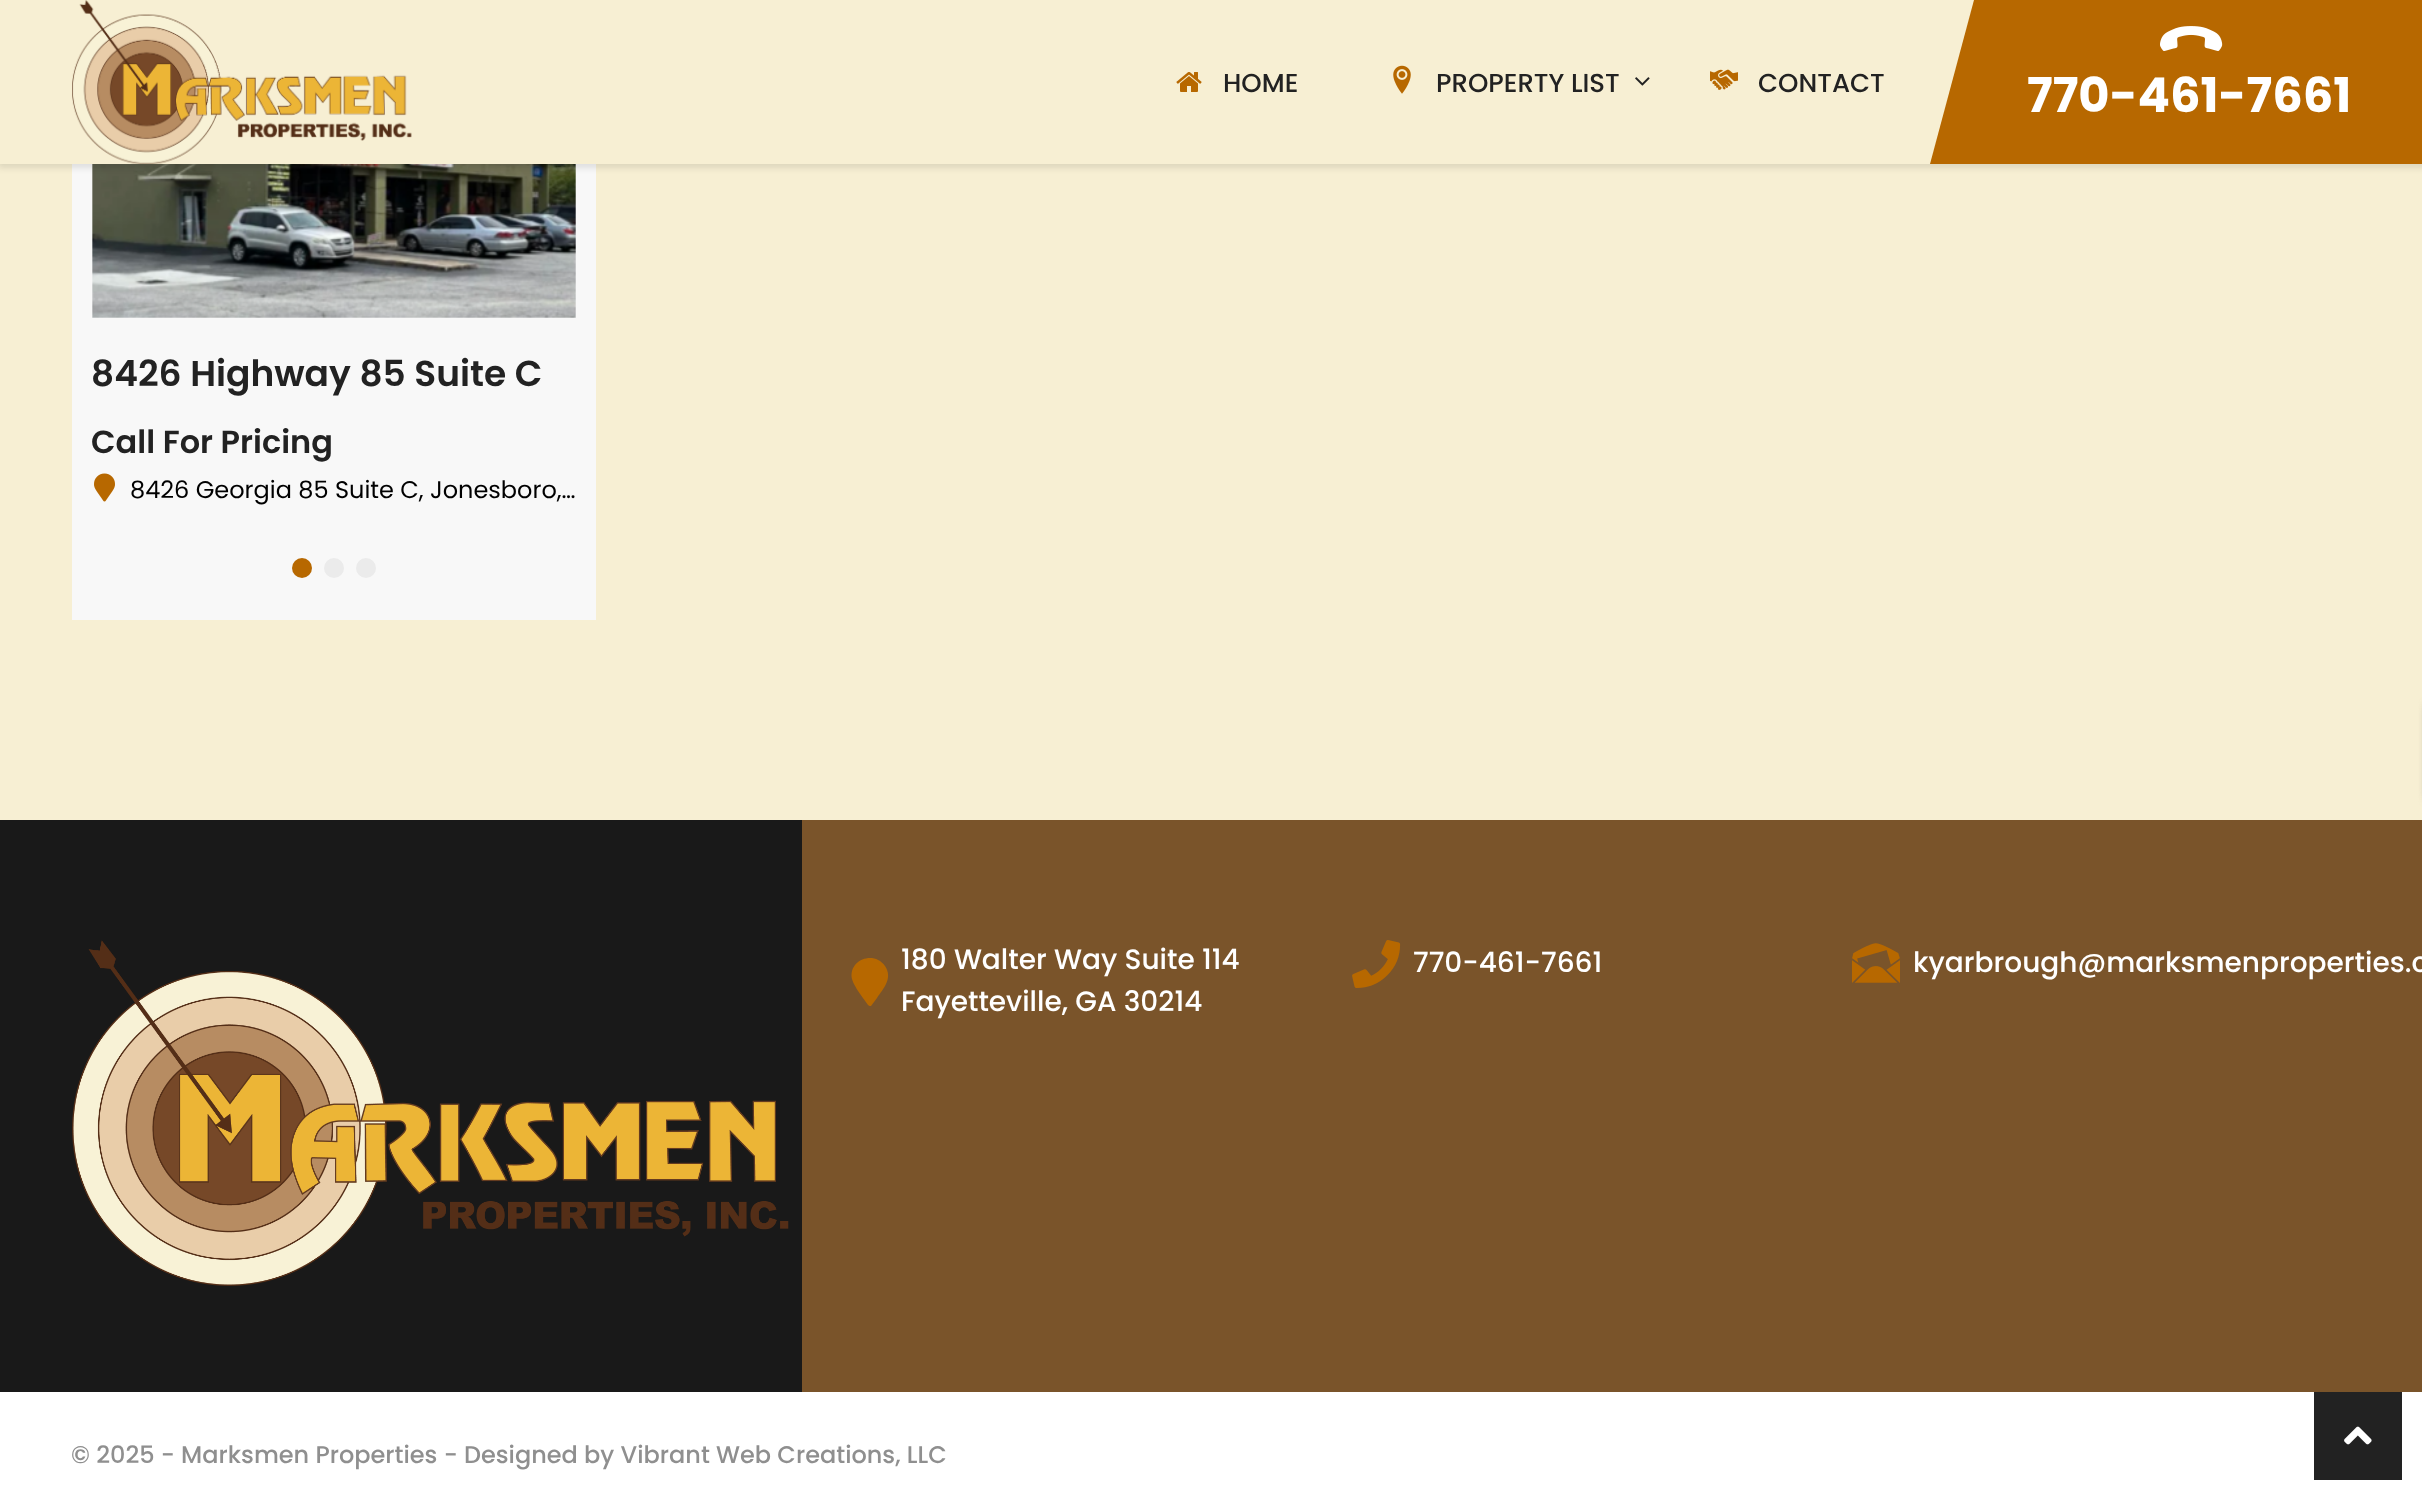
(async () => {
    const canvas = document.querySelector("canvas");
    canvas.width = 2422;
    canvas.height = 1499;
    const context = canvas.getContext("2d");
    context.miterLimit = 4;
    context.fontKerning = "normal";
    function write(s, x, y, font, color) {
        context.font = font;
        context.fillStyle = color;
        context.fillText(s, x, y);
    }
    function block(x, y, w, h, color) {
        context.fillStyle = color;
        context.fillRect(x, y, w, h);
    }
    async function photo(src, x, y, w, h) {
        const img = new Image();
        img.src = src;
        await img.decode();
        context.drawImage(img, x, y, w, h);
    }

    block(0, 0, 2422, 1499, "rgb(247, 239, 211)");
    block(72, 164, 524, 456, "rgb(248, 248, 248)");
    await photo("media/7.png", 92, 164, 484, 154);
    context.fillStyle = "rgba(0, 0, 0, 0.1)";
    context.filter = "blur(3px)";
    context.beginPath();
    context.rect(-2, -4, 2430, 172);
    context.fill();
    context.filter = "none";
    block(0, 0, 1974, 164, "rgb(247, 239, 211)");
    await photo("media/1.png", 72, 0, 340, 164);
    await photo("media/2.png", 1176, 72, 26, 20);
    write("HOME", 1223, 92, "500 26px Poppins", "rgb(34, 34, 34)");
    await photo("media/3.png", 1393, 65, 18, 29);
    write("PROPERTY LIST", 1436, 92, "500 26px Poppins", "rgb(34, 34, 34)");
    await photo("media/4.png", 1635, 77, 15, 9);
    await photo("media/5.png", 1710, 69, 28, 21);
    write("CONTACT", 1758, 92, "500 26px Poppins", "rgb(34, 34, 34)");
    block(1974, 0, 448, 164, "rgb(183, 104, 0)");
    context.beginPath();
    context.moveTo(1974, 164);
    context.lineTo(1930, 164);
    context.lineTo(1974, 0);
    context.closePath();
    context.fill();
    await photo("media/6.png", 2160, 26, 63, 25);
    write("770-461-7661", 2027, 112, "bold 48px Poppins", "rgb(255, 255, 255)");
    write("8426 Highway 85 Suite C", 91, 386, "600 36px Poppins", "rgb(34, 34, 34)");
    write("Call For Pricing", 91, 453, "600 32px Poppins", "rgb(34, 34, 34)");
    await photo("media/8.png", 94, 473, 21, 29);
    write("8426 Georgia 85 Suite C, Jonesboro,…", 130, 498, "24px Poppins", "rgb(0, 0, 0)");
    context.fillStyle = "rgb(183, 104, 0)";
    context.beginPath();
    context.arc(302, 568, 10, 0, Math.PI * 2);
    context.fill();
    context.fillStyle = "rgb(235, 235, 235)";
    context.beginPath();
    context.arc(334, 568, 10, 0, Math.PI * 2);
    context.fill();
    context.beginPath();
    context.arc(366, 568, 10, 0, Math.PI * 2);
    context.fill();
    block(802, 820, 1620, 572, "rgb(122, 84, 42)");
    block(0, 820, 802, 572, "rgb(25, 25, 25)");
    await photo("media/9.png", 72, 940, 717, 346);
    context.fillStyle = "rgb(183, 104, 0)";
    context.beginPath();
    context.moveTo(868, 1005);
    context.bezierCurveTo(864, 999, 854, 987, 852, 979);
    context.bezierCurveTo(848, 960, 874, 950, 885, 966);
    context.bezierCurveTo(893, 978, 884, 988, 877, 998);
    context.lineTo(871, 1006);
    context.bezierCurveTo(870, 1006, 869, 1006, 868, 1005);
    context.closePath();
    context.fill();
    write("180 Walter Way Suite 114", 901, 969, "500 28px Poppins", "rgb(255, 255, 255)");
    write("Fayetteville, GA 30214", 901, 1011, "500 28px Poppins", "rgb(255, 255, 255)");
    await photo("media/10.png", 1352, 940, 49, 48);
    write("770-461-7661", 1413, 972, "500 28px Poppins", "rgb(255, 255, 255)");
    await photo("media/11.png", 1852, 943, 48, 40);
    write("kyarbrough@marksmenproperties.c", 1913, 972, "500 28px Poppins", "rgb(255, 255, 255)");
    block(0, 1392, 2422, 107, "rgb(255, 255, 255)");
    write("© 2025 - Marksmen Properties - Designed by Vibrant Web Creations, LLC", 71, 1463, "500 24px Poppins", "rgb(143, 143, 143)");
    context.fillStyle = "rgb(119, 119, 119)";
    context.filter = "blur(5px)";
    context.beginPath();
    context.rect(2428, 706, 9, 92);
    context.fill();
    context.filter = "none";
    block(2314, 1392, 88, 88, "rgb(34, 34, 34)");
    await photo("media/12.png", 2344, 1426, 28, 19);
})();
